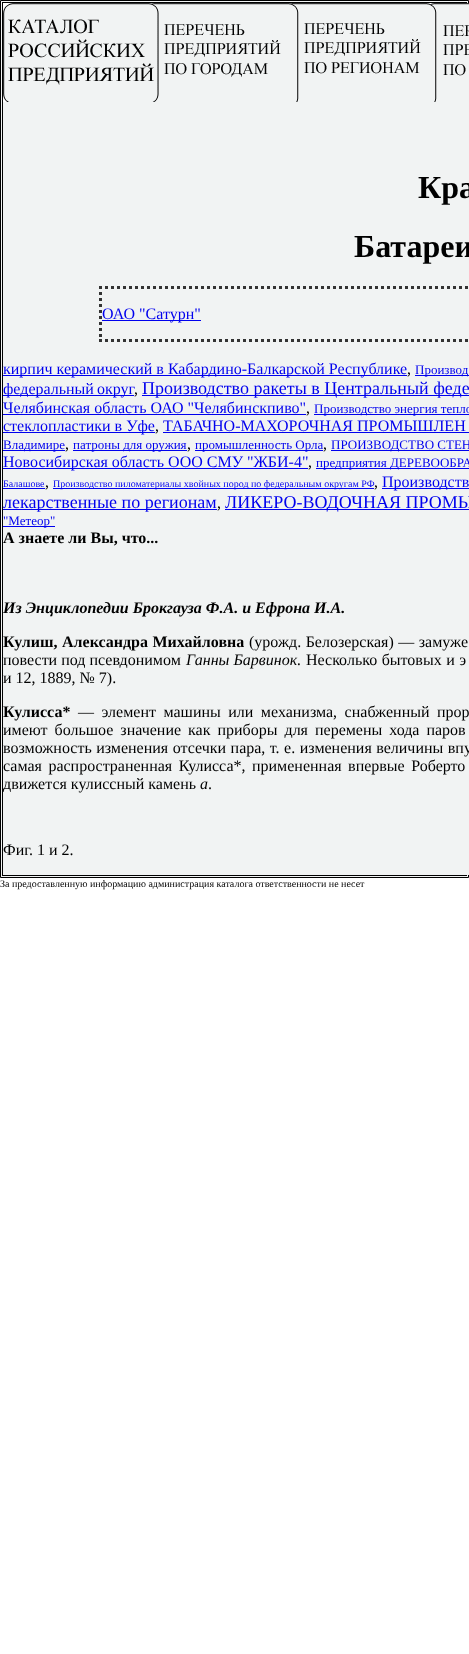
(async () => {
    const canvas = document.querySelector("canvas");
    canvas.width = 469;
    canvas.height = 1654;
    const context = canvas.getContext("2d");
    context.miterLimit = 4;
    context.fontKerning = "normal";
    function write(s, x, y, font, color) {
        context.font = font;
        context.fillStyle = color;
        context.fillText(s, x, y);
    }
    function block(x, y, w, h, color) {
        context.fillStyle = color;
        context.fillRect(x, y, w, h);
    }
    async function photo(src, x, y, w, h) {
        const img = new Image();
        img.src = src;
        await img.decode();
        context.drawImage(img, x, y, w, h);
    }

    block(0, 0, 469, 1654, "rgb(255, 255, 255)");
    context.fillStyle = "rgb(241, 243, 243)";
    context.beginPath();
    context.rect(0.5, 0.5, 468, 877);
    context.fill();
    context.strokeStyle = "rgb(0, 0, 0)";
    context.stroke();
    context.strokeRect(2.5, 2.5, 464, 873);
    block(466, 102, 3, 773, "rgb(241, 243, 243)");
    await photo("media/1.png", 3, 3, 466, 99);
    write("Кра", 418, 198, "bold 32px Liberation Serif", "rgb(0, 0, 0)");
    write("Батареи", 354, 257, "bold 32px Liberation Serif", "rgb(0, 0, 0)");
    context.beginPath();
    context.moveTo(99, 287.5);
    context.lineTo(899, 287.5);
    context.strokeStyle = "rgb(51, 51, 51)";
    context.lineWidth = 3;
    context.setLineDash([3, 3]);
    context.stroke();
    context.beginPath();
    context.moveTo(99, 340.5);
    context.lineTo(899, 340.5);
    context.stroke();
    context.beginPath();
    context.moveTo(100.5, 286);
    context.lineTo(100.5, 342);
    context.stroke();
    block(102, 320, 99, 1, "rgb(0, 0, 238)");
    write("ОАО \"Сатурн\"", 102, 319, "16px Liberation Serif", "rgb(0, 0, 238)");
    block(3, 375, 404, 1, "rgb(0, 0, 238)");
    write("кирпич керамический в Кабардино-Балкарской Республике", 3, 374, "16px Liberation Serif", "rgb(0, 0, 238)");
    write(",", 407, 374, "16px Liberation Serif", "rgb(0, 0, 0)");
    block(415, 375, 54, 1, "rgb(0, 0, 238)");
    write("Производ", 415, 374, "13px Liberation Serif", "rgb(0, 0, 238)");
    block(3, 395, 131, 1, "rgb(0, 0, 238)");
    context.wordSpacing = "-1px";
    write("федеральный округ", 3, 394, "16px Liberation Serif", "rgb(0, 0, 238)");
    context.wordSpacing = "0px";
    write(",", 134, 394, "16px Liberation Serif", "rgb(0, 0, 0)");
    block(142, 395, 327, 1, "rgb(0, 0, 238)");
    write("Производство ракеты в Центральный феде", 142, 394, "18px Liberation Serif", "rgb(0, 0, 238)");
    write("Челябинская область ОАО \"Челябинскпиво\"", 3, 413, "16px Liberation Serif", "rgb(0, 0, 238)");
    block(3, 414, 303, 1, "rgb(0, 0, 238)");
    write(",", 306, 413, "16px Liberation Serif", "rgb(0, 0, 0)");
    block(314, 414, 155, 1, "rgb(0, 0, 238)");
    write("Производство энергия тепло", 314, 413, "13px Liberation Serif", "rgb(0, 0, 238)");
    block(3, 432, 152, 1, "rgb(0, 0, 238)");
    write("стеклопластики в Уфе", 3, 431, "16px Liberation Serif", "rgb(0, 0, 238)");
    write(",", 155, 431, "16px Liberation Serif", "rgb(0, 0, 0)");
    write("ТАБАЧНО-МАХОРОЧНАЯ ПРОМЫШЛЕН", 163, 431, "16px Liberation Serif", "rgb(0, 0, 238)");
    block(163, 432, 306, 1, "rgb(0, 0, 238)");
    block(3, 450, 62, 1, "rgb(0, 0, 238)");
    write("Владимире", 3, 449, "13px Liberation Serif", "rgb(0, 0, 238)");
    write(",", 65, 449, "16px Liberation Serif", "rgb(0, 0, 0)");
    block(73, 450, 114, 1, "rgb(0, 0, 238)");
    write("патроны для оружия", 73, 449, "13px Liberation Serif", "rgb(0, 0, 238)");
    write(",", 187, 449, "16px Liberation Serif", "rgb(0, 0, 0)");
    block(195, 450, 128, 1, "rgb(0, 0, 238)");
    write("промышленность Орла", 195, 449, "13px Liberation Serif", "rgb(0, 0, 238)");
    write(",", 323, 449, "16px Liberation Serif", "rgb(0, 0, 0)");
    block(331, 450, 138, 1, "rgb(0, 0, 238)");
    write("ПРОИЗВОДСТВО СТЕН", 331, 449, "13px Liberation Serif", "rgb(0, 0, 238)");
    block(3, 468, 305, 1, "rgb(0, 0, 238)");
    write("Новосибирская область ООО СМУ \"ЖБИ-4\"", 3, 467, "16px Liberation Serif", "rgb(0, 0, 238)");
    write(",", 308, 467, "16px Liberation Serif", "rgb(0, 0, 0)");
    block(316, 468, 153, 1, "rgb(0, 0, 238)");
    write("предприятия ДЕРЕВООБРА", 316, 467, "13px Liberation Serif", "rgb(0, 0, 238)");
    write("Балашове", 3, 487, "10px Liberation Serif", "rgb(0, 0, 238)");
    block(3, 488, 42, 1, "rgb(0, 0, 238)");
    write(",", 45, 487, "16px Liberation Serif", "rgb(0, 0, 0)");
    block(53, 488, 321, 1, "rgb(0, 0, 238)");
    write("Производство пиломатериалы хвойных пород по федеральным округам РФ", 53, 487, "10px Liberation Serif", "rgb(0, 0, 238)");
    write(",", 374, 487, "16px Liberation Serif", "rgb(0, 0, 0)");
    block(382, 488, 87, 1, "rgb(0, 0, 238)");
    write("Производств", 382, 487, "16px Liberation Serif", "rgb(0, 0, 238)");
    block(3, 509, 214, 1, "rgb(0, 0, 238)");
    write("лекарственные по регионам", 3, 508, "18px Liberation Serif", "rgb(0, 0, 238)");
    write(",", 217, 508, "16px Liberation Serif", "rgb(0, 0, 0)");
    block(225, 509, 244, 1, "rgb(0, 0, 238)");
    write("ЛИКЕРО-ВОДОЧНАЯ ПРОМЫ", 225, 508, "18px Liberation Serif", "rgb(0, 0, 238)");
    block(3, 526, 52, 1, "rgb(0, 0, 238)");
    write("\"Метеор\"", 3, 525, "13px Liberation Serif", "rgb(0, 0, 238)");
    write("А знаете ли Вы, что...", 3, 543, "bold 16px Liberation Serif", "rgb(0, 0, 0)");
    write("Из Энциклопедии Брокгауза Ф.А. и Ефрона И.А.", 3, 613, "italic bold 16px Liberation Serif", "rgb(0, 0, 0)");
    context.wordSpacing = "0.5px";
    write("Кулиш, Александра Михайловна", 3, 647, "bold 16px Liberation Serif", "rgb(0, 0, 0)");
    write("(урожд. Белозерская) — замуже", 249, 647, "16px Liberation Serif", "rgb(0, 0, 0)");
    context.wordSpacing = "0px";
    write("повести под псевдонимом", 3, 665, "16px Liberation Serif", "rgb(0, 0, 0)");
    write("Ганны Барвинок.", 186, 665, "italic 16px Liberation Serif", "rgb(0, 0, 0)");
    context.wordSpacing = "0.5px";
    write("Несколько бытовых и э", 306, 665, "16px Liberation Serif", "rgb(0, 0, 0)");
    context.wordSpacing = "0px";
    write("и 12, 1889, № 7).", 3, 683, "16px Liberation Serif", "rgb(0, 0, 0)");
    write("Кулисса*", 3, 717, "bold 16px Liberation Serif", "rgb(0, 0, 0)");
    context.wordSpacing = "3.5px";
    write("— элемент машины или механизма, снабженный прор", 78, 717, "16px Liberation Serif", "rgb(0, 0, 0)");
    context.wordSpacing = "3px";
    write("имеют большое значение как приборы для перемены хода паров", 3, 735, "16px Liberation Serif", "rgb(0, 0, 0)");
    context.wordSpacing = "0.5px";
    write("возможность изменения отсечки пара, т. е. изменения величины впу", 3, 753, "16px Liberation Serif", "rgb(0, 0, 0)");
    context.wordSpacing = "2.5px";
    write("самая распространенная Кулисса*, примененная впервые Роберто", 3, 771, "16px Liberation Serif", "rgb(0, 0, 0)");
    context.wordSpacing = "0px";
    write("движется кулиссный камень", 3, 789, "16px Liberation Serif", "rgb(0, 0, 0)");
    write("а", 200, 789, "italic 16px Liberation Serif", "rgb(0, 0, 0)");
    write(".", 208, 789, "16px Liberation Serif", "rgb(0, 0, 0)");
    write("Фиг. 1 и 2.", 3, 855, "16px Liberation Serif", "rgb(0, 0, 0)");
    write("За предоставленную информацию администрация каталога ответственности не несет", 0, 887, "10px Liberation Serif", "rgb(0, 0, 0)");
})();
